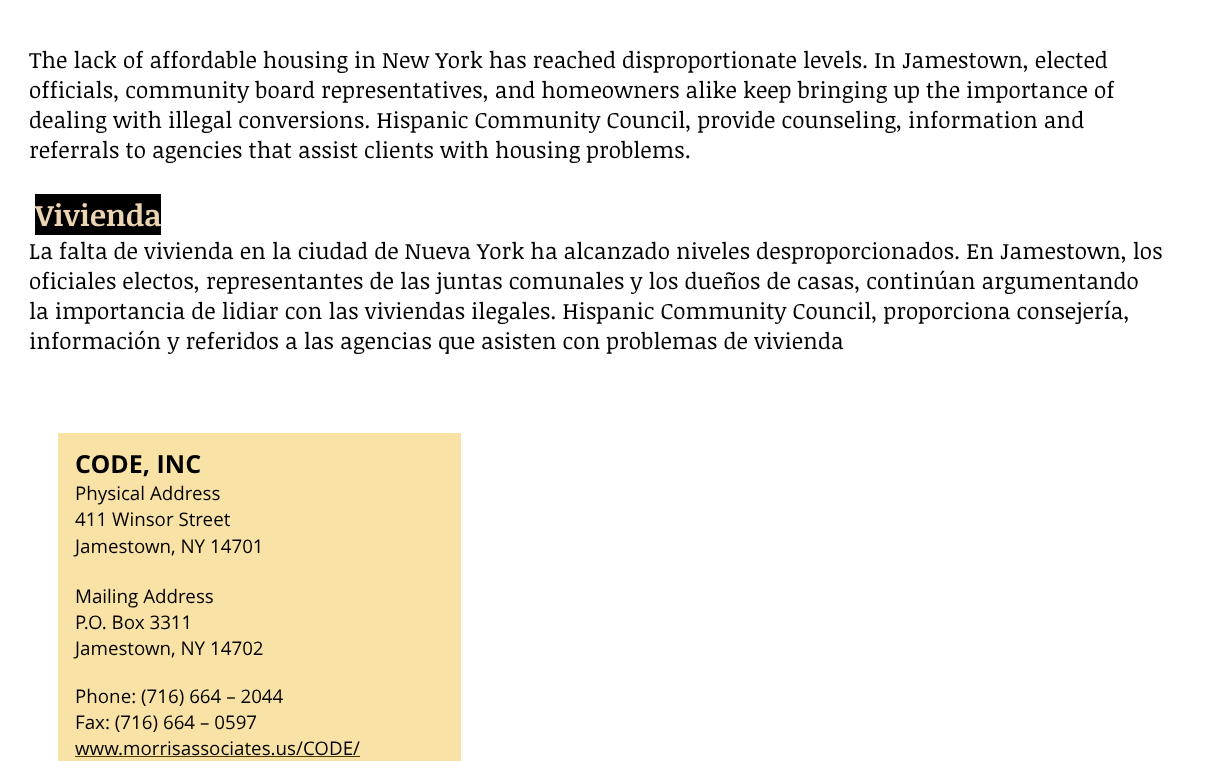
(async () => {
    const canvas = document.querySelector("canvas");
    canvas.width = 1230;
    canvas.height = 761;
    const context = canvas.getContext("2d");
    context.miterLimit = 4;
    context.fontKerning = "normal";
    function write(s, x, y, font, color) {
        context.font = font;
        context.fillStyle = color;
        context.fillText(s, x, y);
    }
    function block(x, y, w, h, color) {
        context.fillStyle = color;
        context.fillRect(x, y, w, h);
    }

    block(0, 0, 1230, 761, "rgb(255, 255, 255)");
    write("The lack of affordable housing in New York has reached disproportionate levels. In Jamestown, elected", 29, 68, "22.5px Noticia Text", "rgb(0, 0, 0)");
    write("officials, community board representatives, and homeowners alike keep bringing up the importance of", 29, 98, "22.5px Noticia Text", "rgb(0, 0, 0)");
    write("dealing with illegal conversions. Hispanic Community Council, provide counseling, information and", 29, 128, "22.5px Noticia Text", "rgb(0, 0, 0)");
    write("referrals to agencies that assist clients with housing problems.", 29, 158, "22.5px Noticia Text", "rgb(0, 0, 0)");
    block(35, 194, 126, 41, "rgb(0, 0, 0)");
    write("Vivienda", 35, 226, "bold 30px Noticia Text", "rgb(236, 211, 178)");
    write("La falta de vivienda en la ciudad de Nueva York ha alcanzado niveles desproporcionados. En Jamestown, los", 29, 259, "22.5px Noticia Text", "rgb(0, 0, 0)");
    write("oficiales electos, representantes de las juntas comunales y los dueños de casas, continúan argumentando", 29, 289, "22.5px Noticia Text", "rgb(0, 0, 0)");
    write("la importancia de lidiar con las viviendas ilegales. Hispanic Community Council, proporciona consejería,", 29, 319, "22.5px Noticia Text", "rgb(0, 0, 0)");
    write("información y referidos a las agencias que asisten con problemas de vivienda", 29, 349, "22.5px Noticia Text", "rgb(0, 0, 0)");
    block(58, 433, 403, 328, "rgb(249, 226, 166)");
    write("CODE, INC", 75, 473, "bold 25px Open Sans", "rgb(0, 0, 0)");
    write("Physical Address", 75, 500, "18.75px Open Sans", "rgb(0, 0, 0)");
    write("411 Winsor Street", 75, 526, "18.75px Open Sans", "rgb(0, 0, 0)");
    write("Jamestown, NY 14701", 75, 553, "18.75px Open Sans", "rgb(0, 0, 0)");
    write("Mailing Address", 75, 603, "18.75px Open Sans", "rgb(0, 0, 0)");
    write("P.O. Box 3311", 75, 629, "18.75px Open Sans", "rgb(0, 0, 0)");
    write("Jamestown, NY 14702", 75, 655, "18.75px Open Sans", "rgb(0, 0, 0)");
    write("Phone: (716) 664 – 2044", 75, 703, "18.75px Open Sans", "rgb(0, 0, 0)");
    write("Fax: (716) 664 – 0597", 75, 729, "18.75px Open Sans", "rgb(0, 0, 0)");
    write("www.morrisassociates.us/CODE/", 75, 755, "18.75px Open Sans", "rgb(0, 0, 0)");
    block(75, 756, 285, 1, "rgb(79, 57, 0)");
})();
